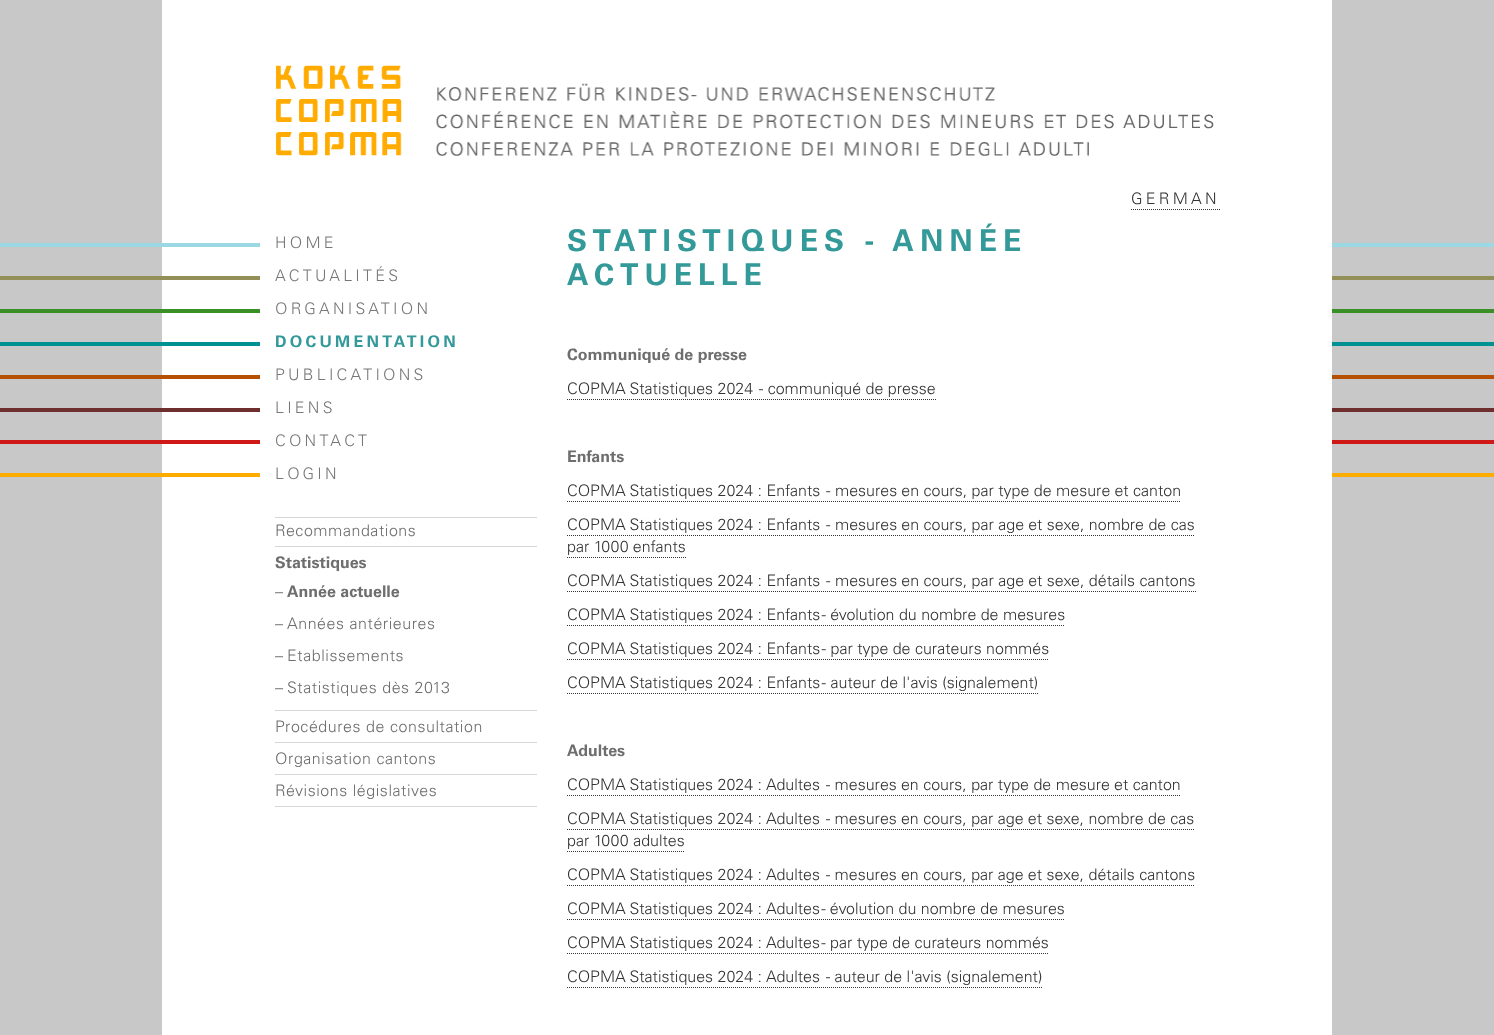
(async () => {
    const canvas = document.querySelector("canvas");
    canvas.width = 1494;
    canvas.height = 1035;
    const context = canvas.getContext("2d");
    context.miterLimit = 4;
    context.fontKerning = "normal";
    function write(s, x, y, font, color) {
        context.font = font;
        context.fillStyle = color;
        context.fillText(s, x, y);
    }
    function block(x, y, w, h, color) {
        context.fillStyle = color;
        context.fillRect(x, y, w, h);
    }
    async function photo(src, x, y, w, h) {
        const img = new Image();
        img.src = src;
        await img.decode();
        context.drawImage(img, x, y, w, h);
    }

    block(0, 0, 1494, 1035, "rgb(200, 200, 200)");
    await photo("media/1.png", 0, 243, 1494, 234);
    block(162, 0, 1170, 1035, "rgb(255, 255, 255)");
    await photo("media/2.png", 276, 65, 938, 91);
    context.letterSpacing = "3.25px";
    write("GERMAN", 1131, 204, "300 16px Univers", "rgb(51, 51, 51)");
    context.beginPath();
    context.moveTo(1131, 209.5);
    context.lineTo(1220, 209.5);
    context.strokeStyle = "rgb(51, 51, 51)";
    context.setLineDash([1, 1]);
    context.stroke();
    await photo("media/3.png", 162, 243, 98, 234);
    write("HOME", 275, 248, "300 16px Univers", "rgb(119, 119, 119)");
    write("ACTUALITÉS", 275, 281, "300 16px Univers", "rgb(119, 119, 119)");
    write("ORGANISATION", 275, 314, "300 16px Univers", "rgb(119, 119, 119)");
    write("DOCUMENTATION", 275, 347, "bold 16px Univers", "rgb(51, 153, 153)");
    write("PUBLICATIONS", 275, 380, "300 16px Univers", "rgb(119, 119, 119)");
    write("LIENS", 275, 413, "300 16px Univers", "rgb(119, 119, 119)");
    write("CONTACT", 275, 446, "300 16px Univers", "rgb(119, 119, 119)");
    write("LOGIN", 275, 479, "300 16px Univers", "rgb(119, 119, 119)");
    block(275, 517, 262, 1, "rgb(215, 215, 215)");
    block(275, 546, 262, 1, "rgb(215, 215, 215)");
    context.letterSpacing = "0.55px";
    write("Recommandations", 275, 536, "300 16px Univers", "rgb(110, 110, 110)");
    block(275, 710, 262, 1, "rgb(215, 215, 215)");
    context.letterSpacing = "0px";
    write("Statistiques", 275, 568, "bold 16px Univers", "rgb(110, 110, 110)");
    write("–", 275, 597, "300 16px Univers", "rgb(110, 110, 110)");
    write("Année actuelle", 287, 597, "bold 16px Univers", "rgb(110, 110, 110)");
    write("–", 275, 629, "300 16px Univers", "rgb(110, 110, 110)");
    context.letterSpacing = "0.55px";
    write("Années antérieures", 287, 629, "300 16px Univers", "rgb(110, 110, 110)");
    context.letterSpacing = "0px";
    write("–", 275, 661, "300 16px Univers", "rgb(110, 110, 110)");
    context.letterSpacing = "0.55px";
    write("Etablissements", 287, 661, "300 16px Univers", "rgb(110, 110, 110)");
    context.letterSpacing = "0px";
    write("–", 275, 693, "300 16px Univers", "rgb(110, 110, 110)");
    context.letterSpacing = "0.55px";
    write("Statistiques dès 2013", 287, 693, "300 16px Univers", "rgb(110, 110, 110)");
    block(275, 742, 262, 1, "rgb(215, 215, 215)");
    write("Procédures de consultation", 275, 732, "300 16px Univers", "rgb(110, 110, 110)");
    block(275, 774, 262, 1, "rgb(215, 215, 215)");
    write("Organisation cantons", 275, 764, "300 16px Univers", "rgb(110, 110, 110)");
    block(275, 806, 262, 1, "rgb(215, 215, 215)");
    write("Révisions législatives", 275, 796, "300 16px Univers", "rgb(110, 110, 110)");
    context.letterSpacing = "6px";
    write("STATISTIQUES - ANNÉE", 567, 251, "bold 30px Univers", "rgb(51, 153, 153)");
    write("ACTUELLE", 567, 285, "bold 30px Univers", "rgb(51, 153, 153)");
    context.letterSpacing = "0px";
    write("Communiqué de presse", 567, 360, "bold 16px Univers", "rgb(110, 110, 110)");
    write("COPMA Statistiques 2024  - communiqué de presse", 567, 394, "300 16px Univers", "rgb(51, 51, 51)");
    context.beginPath();
    context.moveTo(567, 399.5);
    context.lineTo(936, 399.5);
    context.stroke();
    write("Enfants", 567, 462, "bold 16px Univers", "rgb(110, 110, 110)");
    write("COPMA Statistiques 2024 : Enfants  - mesures en cours, par type de mesure et canton", 567, 496, "300 16px Univers", "rgb(51, 51, 51)");
    context.beginPath();
    context.moveTo(567, 501.5);
    context.lineTo(1181, 501.5);
    context.stroke();
    write("COPMA Statistiques 2024 : Enfants  - mesures en cours, par age et sexe, nombre de cas", 567, 530, "300 16px Univers", "rgb(51, 51, 51)");
    context.beginPath();
    context.moveTo(567, 535.5);
    context.lineTo(1195, 535.5);
    context.stroke();
    write("par 1000 enfants", 567, 552, "300 16px Univers", "rgb(51, 51, 51)");
    context.beginPath();
    context.moveTo(567, 557.5);
    context.lineTo(686, 557.5);
    context.stroke();
    write("COPMA Statistiques 2024 : Enfants  - mesures en cours, par age et sexe, détails cantons", 567, 586, "300 16px Univers", "rgb(51, 51, 51)");
    context.beginPath();
    context.moveTo(567, 591.5);
    context.lineTo(1196, 591.5);
    context.stroke();
    write("COPMA Statistiques 2024 : Enfants - évolution du nombre de mesures", 567, 620, "300 16px Univers", "rgb(51, 51, 51)");
    context.beginPath();
    context.moveTo(567, 625.5);
    context.lineTo(1065, 625.5);
    context.stroke();
    write("COPMA Statistiques 2024 : Enfants - par type de curateurs nommés", 567, 654, "300 16px Univers", "rgb(51, 51, 51)");
    context.beginPath();
    context.moveTo(567, 659.5);
    context.lineTo(1049, 659.5);
    context.stroke();
    write("COPMA Statistiques 2024 : Enfants - auteur de l'avis (signalement)", 567, 688, "300 16px Univers", "rgb(51, 51, 51)");
    context.beginPath();
    context.moveTo(567, 693.5);
    context.lineTo(1038, 693.5);
    context.stroke();
    write("Adultes", 567, 756, "bold 16px Univers", "rgb(110, 110, 110)");
    write("COPMA Statistiques 2024 : Adultes  - mesures en cours, par type de mesure et canton", 567, 790, "300 16px Univers", "rgb(51, 51, 51)");
    context.beginPath();
    context.moveTo(567, 795.5);
    context.lineTo(1181, 795.5);
    context.stroke();
    write("COPMA Statistiques 2024 : Adultes  - mesures en cours, par age et sexe, nombre de cas", 567, 824, "300 16px Univers", "rgb(51, 51, 51)");
    context.beginPath();
    context.moveTo(567, 829.5);
    context.lineTo(1194, 829.5);
    context.stroke();
    write("par 1000 adultes", 567, 846, "300 16px Univers", "rgb(51, 51, 51)");
    context.beginPath();
    context.moveTo(567, 851.5);
    context.lineTo(685, 851.5);
    context.stroke();
    write("COPMA Statistiques 2024 : Adultes  - mesures en cours, par age et sexe, détails cantons", 567, 880, "300 16px Univers", "rgb(51, 51, 51)");
    context.beginPath();
    context.moveTo(567, 885.5);
    context.lineTo(1195, 885.5);
    context.stroke();
    write("COPMA Statistiques 2024 : Adultes - évolution du nombre de mesures", 567, 914, "300 16px Univers", "rgb(51, 51, 51)");
    context.beginPath();
    context.moveTo(567, 919.5);
    context.lineTo(1065, 919.5);
    context.stroke();
    write("COPMA Statistiques 2024 : Adultes - par type de curateurs nommés", 567, 948, "300 16px Univers", "rgb(51, 51, 51)");
    context.beginPath();
    context.moveTo(567, 953.5);
    context.lineTo(1049, 953.5);
    context.stroke();
    write("COPMA Statistiques 2024 : Adultes  - auteur de l'avis (signalement)", 567, 982, "300 16px Univers", "rgb(51, 51, 51)");
    context.beginPath();
    context.moveTo(567, 987.5);
    context.lineTo(1042, 987.5);
    context.stroke();
})();
